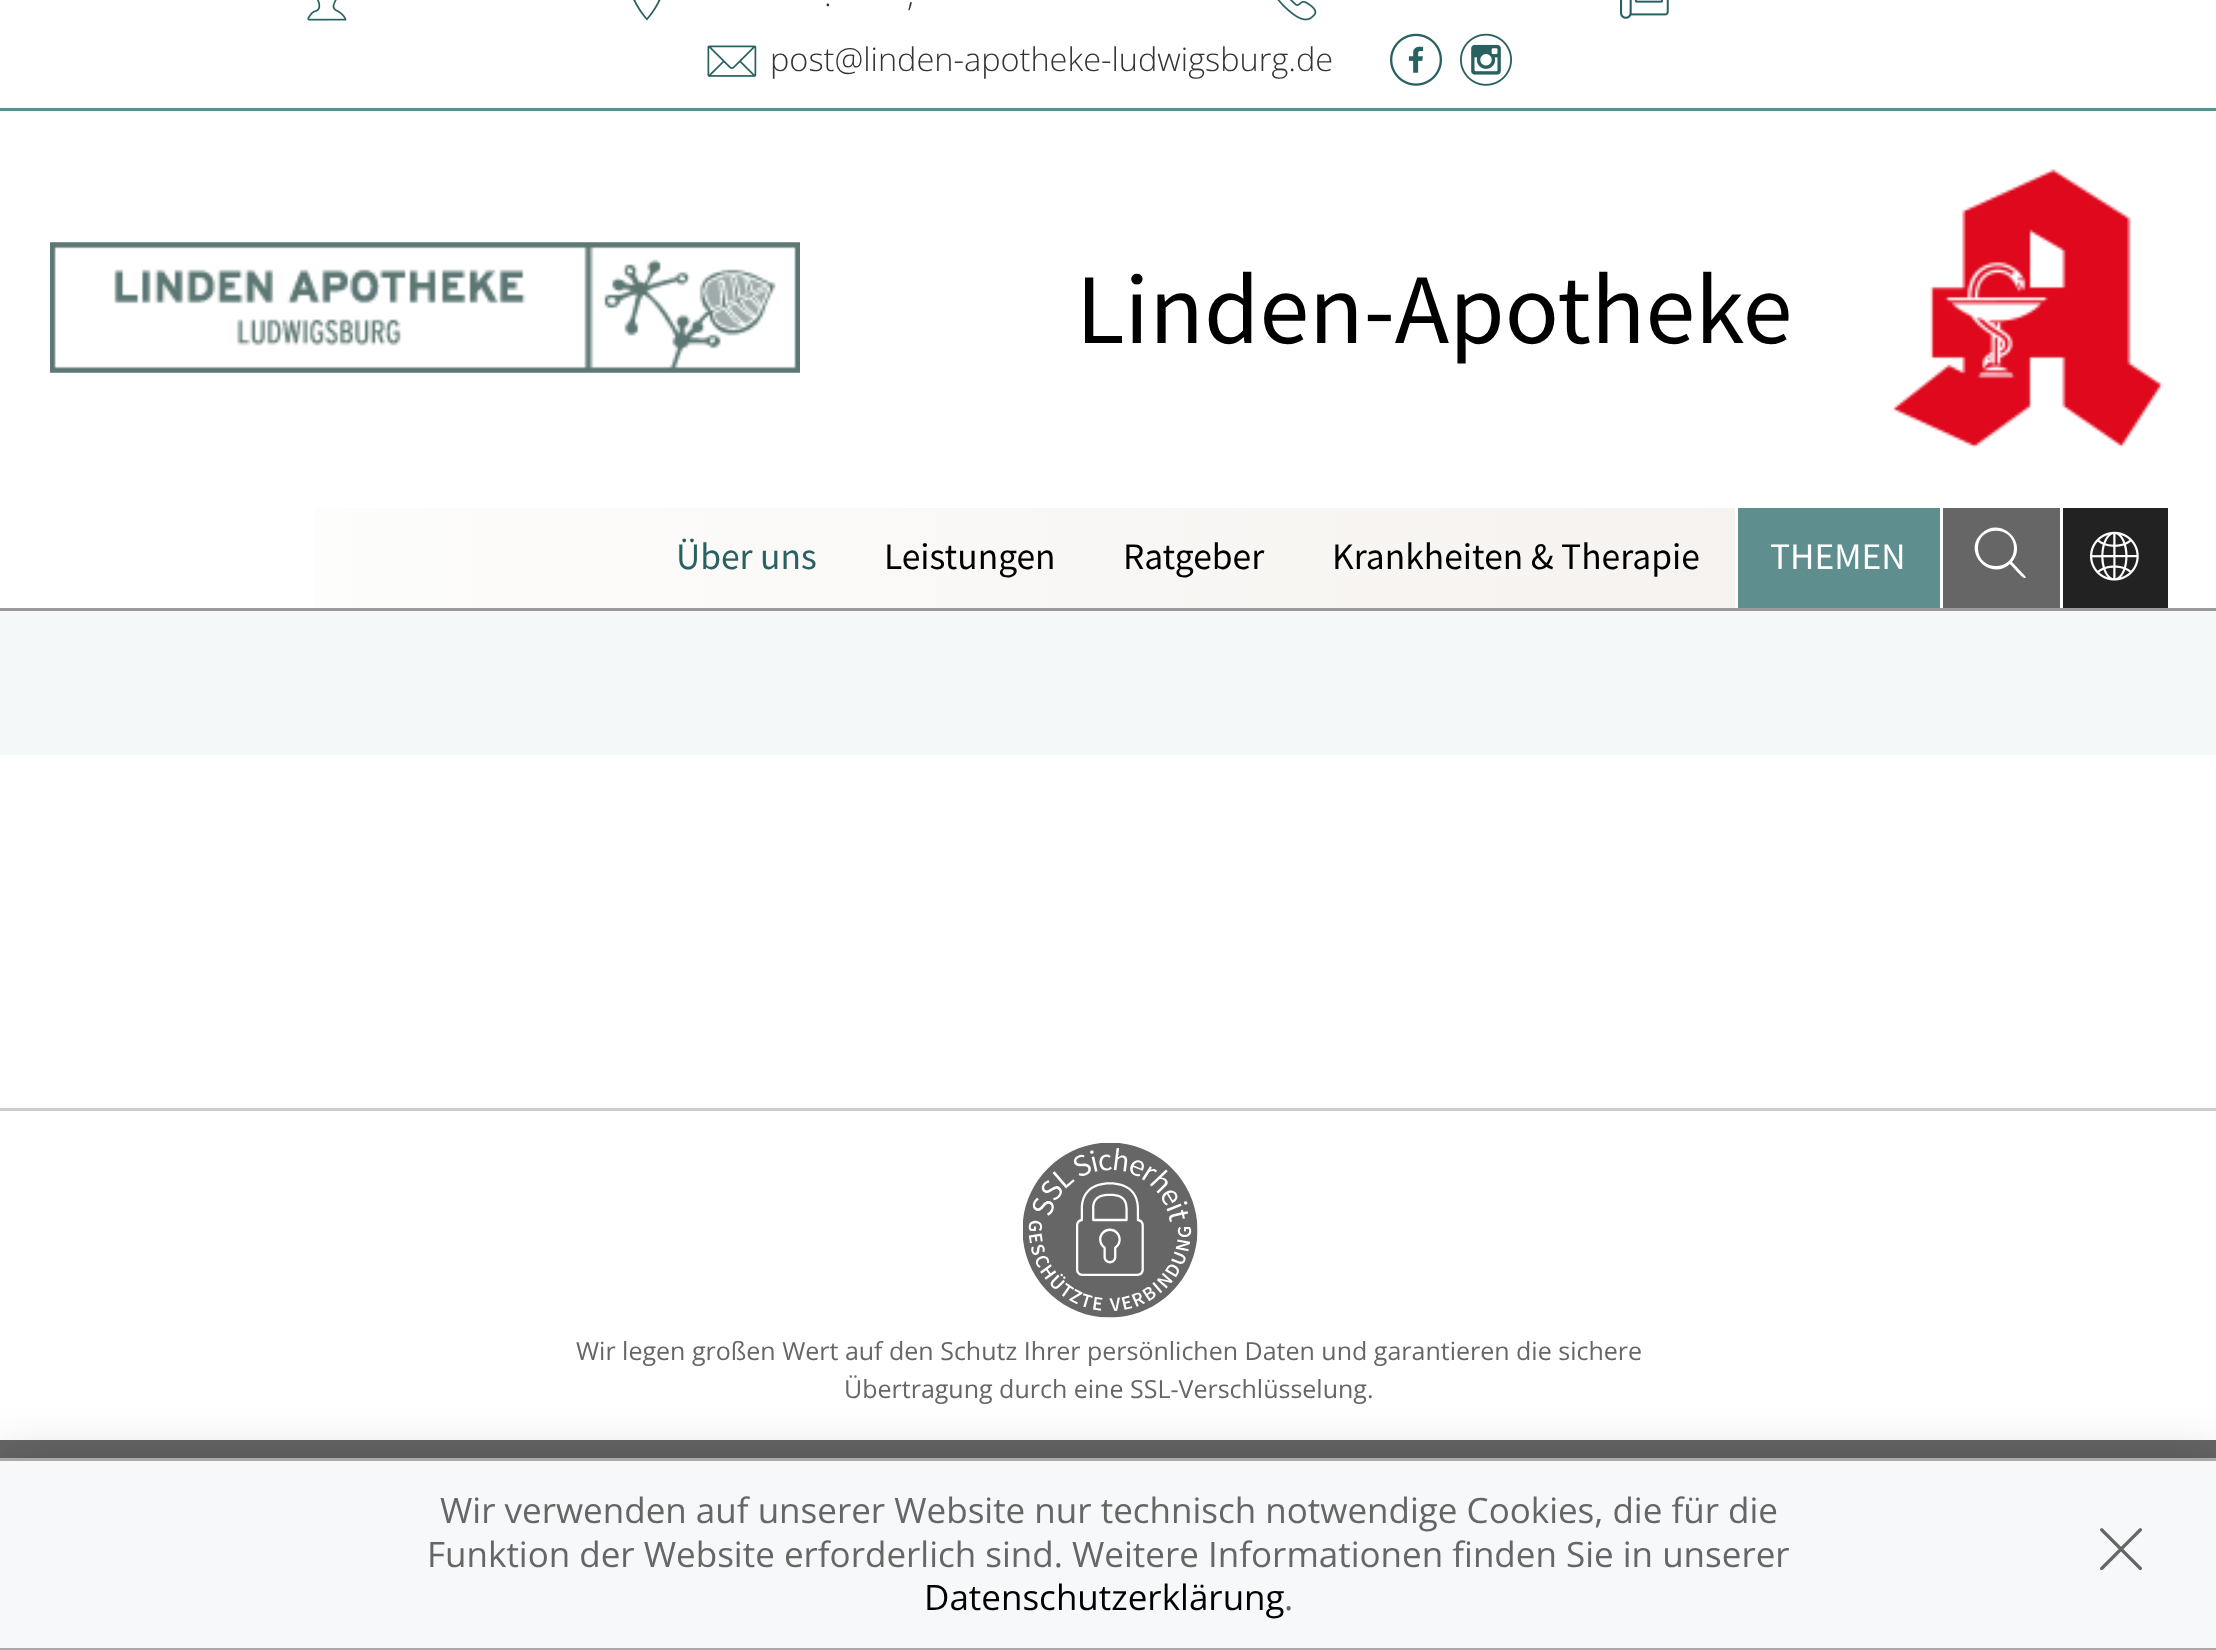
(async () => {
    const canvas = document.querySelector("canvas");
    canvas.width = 2216;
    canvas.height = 1650;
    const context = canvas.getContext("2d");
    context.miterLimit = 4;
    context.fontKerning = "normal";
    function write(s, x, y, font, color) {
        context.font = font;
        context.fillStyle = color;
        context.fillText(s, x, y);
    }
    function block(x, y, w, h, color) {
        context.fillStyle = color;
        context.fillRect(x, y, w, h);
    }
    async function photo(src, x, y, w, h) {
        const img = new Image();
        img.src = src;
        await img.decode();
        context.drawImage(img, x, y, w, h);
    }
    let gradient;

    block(0, 0, 2216, 1650, "rgb(102, 102, 102)");
    block(0, 0, 2216, 608, "rgb(255, 255, 255)");
    block(0, 108, 2216, 3, "rgb(95, 142, 142)");
    await photo("media/1.png", 307, 0, 40, 21);
    await photo("media/2.png", 633, 0, 28, 21);
    write(".", 824, 6, "300 32.5px Open Sans", "rgb(51, 51, 51)");
    write(",", 907, 6, "300 32.5px Open Sans", "rgb(51, 51, 51)");
    await photo("media/3.png", 1277, 0, 40, 21);
    await photo("media/4.png", 1620, 0, 49, 19);
    await photo("media/5.png", 707, 45, 50, 32);
    write("post@linden-apotheke-ludwigsburg.de", 770, 71, "300 32.5px Open Sans", "rgb(51, 51, 51)");
    await photo("media/6.png", 1390, 33, 52, 53);
    await photo("media/7.png", 1460, 33, 52, 53);
    await photo("media/8.png", 50, 242, 750, 131);
    await photo("media/9.png", 50, 242, 750, 131);
    await photo("media/10.png", 1892, 169, 271, 280);
    write("Linden-Apotheke", 1076, 343, "100px Source Sans Pro", "rgb(0, 0, 0)");
    gradient = context.createLinearGradient(50, 558, 2168, 557);
    gradient.addColorStop(0, "rgb(255, 255, 255)");
    gradient.addColorStop(1, "rgb(243, 239, 235)");
    context.fillStyle = gradient;
    context.fillRect(315, 508, 1420, 100);
    write("Über uns", 676, 569, "37.5px Source Sans Pro", "rgb(41, 97, 97)");
    write("Leistungen", 884, 569, "37.5px Source Sans Pro", "rgb(0, 0, 0)");
    write("Ratgeber", 1123, 569, "37.5px Source Sans Pro", "rgb(0, 0, 0)");
    write("Krankheiten & Therapie", 1332, 569, "37.5px Source Sans Pro", "rgb(0, 0, 0)");
    block(1738, 508, 202, 100, "rgb(95, 142, 142)");
    write("THEMEN", 1770, 569, "37.5px Source Sans Pro", "rgb(255, 255, 255)");
    block(1943, 508, 117, 100, "rgb(102, 102, 102)");
    context.fillStyle = "rgb(255, 255, 255)";
    context.beginPath();
    context.moveTo(2025, 576);
    context.lineTo(2012, 562);
    context.bezierCurveTo(2029, 542, 2000, 515, 1981, 534);
    context.bezierCurveTo(1962, 552, 1990, 582, 2010, 564);
    context.bezierCurveTo(2012, 566, 2023, 579, 2025, 578);
    context.bezierCurveTo(2026, 578, 2026, 577, 2025, 576);
    context.closePath();
    context.moveTo(2014, 548);
    context.bezierCurveTo(2014, 572, 1978, 572, 1978, 548);
    context.bezierCurveTo(1978, 525, 2014, 525, 2014, 548);
    context.closePath();
    context.fill();
    block(2063, 508, 105, 100, "rgb(34, 34, 34)");
    await photo("media/11.png", 2090, 531, 49, 50);
    block(0, 755, 2216, 353, "rgb(255, 255, 255)");
    block(0, 611, 2216, 144, "rgb(244, 248, 248)");
    block(0, 608, 2216, 3, "rgb(153, 153, 153)");
    block(0, 1111, 2216, 329, "rgb(255, 255, 255)");
    block(0, 1108, 2216, 3, "rgb(204, 204, 204)");
    await photo("media/12.png", 1023, 1143, 175, 175);
    write("Wir legen großen Wert auf den Schutz Ihrer persönlichen Daten und garantieren die sichere", 576, 1360, "25px Open Sans", "rgb(102, 102, 102)");
    write("Übertragung durch eine SSL-Verschlüsselung.", 844, 1398, "25px Open Sans", "rgb(102, 102, 102)");
    context.fillStyle = "rgba(0, 0, 0, 0.2)";
    context.filter = "blur(25px)";
    context.beginPath();
    context.rect(0, 1458, 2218, 192);
    context.fill();
    context.filter = "none";
    block(0, 1461, 2216, 187, "rgb(247, 248, 249)");
    block(0, 1458, 2216, 3, "rgb(169, 169, 169)");
    block(0, 1648, 2216, 2, "rgb(169, 169, 169)");
    write("Wir verwenden auf unserer Website nur technisch notwendige Cookies, die für die", 440, 1523, "35px Open Sans", "rgb(102, 102, 102)");
    write("Funktion der Website erforderlich sind. Weitere Informationen finden Sie in unserer", 427, 1567, "35px Open Sans", "rgb(102, 102, 102)");
    write("Datenschutzerklärung", 924, 1610, "35px Open Sans", "rgb(0, 0, 0)");
    write(".", 1284, 1610, "35px Open Sans", "rgb(102, 102, 102)");
    await photo("media/13.png", 2100, 1528, 42, 43);
})();
